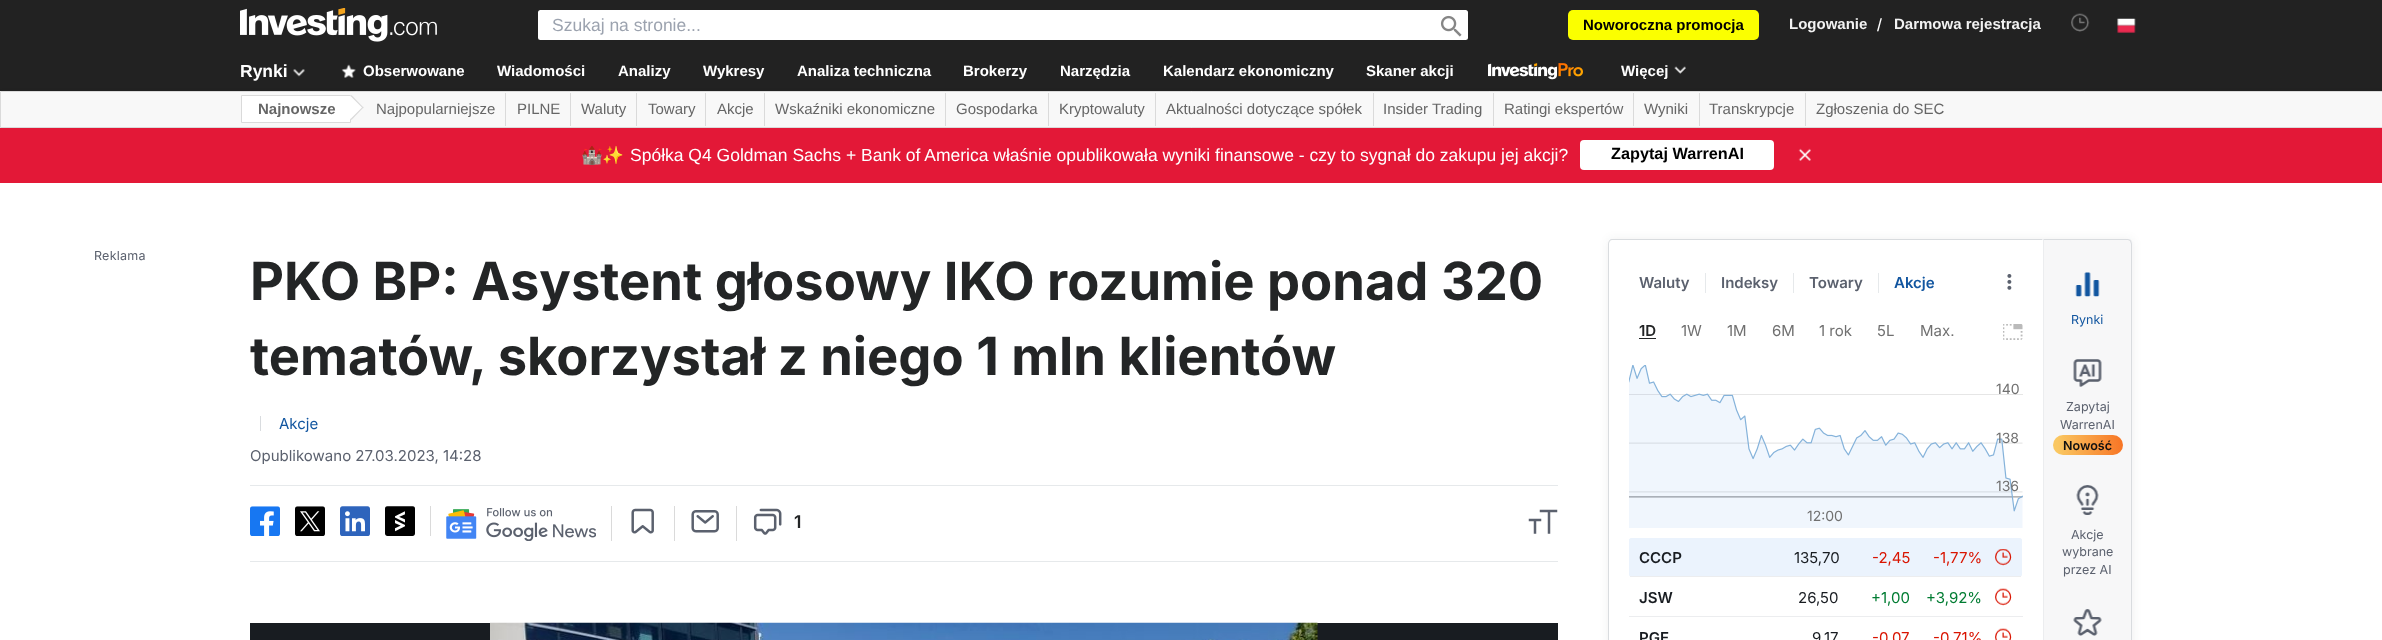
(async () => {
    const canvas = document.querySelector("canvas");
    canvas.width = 2382;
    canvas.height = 640;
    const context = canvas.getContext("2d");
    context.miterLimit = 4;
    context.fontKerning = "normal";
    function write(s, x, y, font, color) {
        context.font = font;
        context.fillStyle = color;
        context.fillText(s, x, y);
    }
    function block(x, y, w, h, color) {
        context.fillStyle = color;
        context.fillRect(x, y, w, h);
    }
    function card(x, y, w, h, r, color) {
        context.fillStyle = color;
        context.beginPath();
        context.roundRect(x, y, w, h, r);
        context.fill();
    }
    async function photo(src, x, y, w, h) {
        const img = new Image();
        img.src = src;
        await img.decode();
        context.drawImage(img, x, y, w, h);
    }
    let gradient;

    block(0, 0, 2382, 640, "rgb(255, 255, 255)");
    block(0, 0, 2382, 91, "rgb(34, 34, 34)");
    await photo("media/1.png", 240, 8, 197, 34);
    card(538, 10, 930, 30, 2.5, "rgb(255, 255, 255)");
    write("Szukaj na stronie...", 552, 31, "17.5px Liberation Sans", "rgb(156, 163, 175)");
    await photo("media/2.png", 1440, 15, 22, 22);
    card(1568, 10, 191, 30, 5, "rgb(251, 255, 0)");
    write("Noworoczna promocja", 1583, 30, "bold 15px Liberation Sans", "rgb(0, 0, 0)");
    write("Logowanie", 1789, 29, "bold 15px Liberation Sans", "rgb(242, 242, 242)");
    write("/", 1877, 31, "17.5px Liberation Sans", "rgb(255, 255, 255)");
    write("Darmowa rejestracja", 1894, 29, "bold 15px Liberation Sans", "rgb(242, 242, 242)");
    await photo("media/3.png", 2071, 13, 19, 19);
    await photo("media/4.png", 2117, 18, 19, 15);
    write("Rynki", 240, 77, "bold 17.5px Liberation Sans", "rgb(255, 255, 255)");
    await photo("media/5.png", 293, 69, 12, 8);
    await photo("media/6.png", 341, 64, 15, 14);
    write("Obserwowane", 363, 76, "bold 15px Liberation Sans", "rgb(255, 255, 255)");
    write("Wiadomości", 497, 76, "bold 15px Liberation Sans", "rgb(255, 255, 255)");
    write("Analizy", 618, 76, "bold 15px Liberation Sans", "rgb(255, 255, 255)");
    write("Wykresy", 703, 76, "bold 15px Liberation Sans", "rgb(255, 255, 255)");
    write("Analiza techniczna", 797, 76, "bold 15px Liberation Sans", "rgb(255, 255, 255)");
    write("Brokerzy", 963, 76, "bold 15px Liberation Sans", "rgb(255, 255, 255)");
    write("Narzędzia", 1060, 76, "bold 15px Liberation Sans", "rgb(255, 255, 255)");
    write("Kalendarz ekonomiczny", 1163, 76, "bold 15px Liberation Sans", "rgb(255, 255, 255)");
    write("Skaner akcji", 1366, 76, "bold 15px Liberation Sans", "rgb(255, 255, 255)");
    await photo("media/7.png", 1488, 63, 95, 17);
    write("Więcej", 1621, 76, "bold 15px Liberation Sans", "rgb(255, 255, 255)");
    await photo("media/8.png", 1674, 66, 12, 8);
    context.fillStyle = "rgba(0, 0, 0, 0.2)";
    context.filter = "blur(2px)";
    context.beginPath();
    context.rect(0, 93, 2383, 36);
    context.fill();
    context.filter = "none";
    context.fillStyle = "rgb(248, 248, 248)";
    context.beginPath();
    context.rect(0.5, 91.5, 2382, 36);
    context.fill();
    context.strokeStyle = "rgb(218, 218, 218)";
    context.stroke();
    context.fillStyle = "rgb(255, 255, 255)";
    context.beginPath();
    context.rect(241.5, 95.5, 109, 27);
    context.fill();
    context.stroke();
    write("Najnowsze", 258, 114, "bold 15px Liberation Sans", "rgb(102, 102, 102)");
    context.fillStyle = "rgb(255, 255, 255)";
    context.beginPath();
    context.moveTo(351.5, 95);
    context.lineTo(363.5, 107.5);
    context.lineTo(351.5, 120);
    context.lineTo(339, 107.5);
    context.closePath();
    context.fill();
    context.fillStyle = "rgb(218, 218, 218)";
    context.beginPath();
    context.moveTo(351.5, 95);
    context.lineTo(363.5, 107.5);
    context.lineTo(363, 108.5);
    context.lineTo(350.5, 96);
    context.closePath();
    context.fill();
    context.beginPath();
    context.moveTo(363, 106.5);
    context.lineTo(363.5, 107.5);
    context.lineTo(351.5, 120);
    context.lineTo(350.5, 119);
    context.closePath();
    context.fill();
    block(505, 93, 1, 33, "rgb(218, 218, 218)");
    write("Najpopularniejsze", 376, 114, "15px Liberation Sans", "rgb(102, 102, 102)");
    block(570, 93, 1, 33, "rgb(218, 218, 218)");
    write("PILNE", 517, 114, "15px Liberation Sans", "rgb(102, 102, 102)");
    block(636, 93, 1, 33, "rgb(218, 218, 218)");
    write("Waluty", 581, 114, "15px Liberation Sans", "rgb(102, 102, 102)");
    block(705, 93, 1, 33, "rgb(218, 218, 218)");
    write("Towary", 648, 114, "15px Liberation Sans", "rgb(102, 102, 102)");
    block(764, 93, 1, 33, "rgb(218, 218, 218)");
    write("Akcje", 717, 114, "15px Liberation Sans", "rgb(102, 102, 102)");
    block(945, 93, 1, 33, "rgb(218, 218, 218)");
    write("Wskaźniki ekonomiczne", 775, 114, "15px Liberation Sans", "rgb(102, 102, 102)");
    block(1048, 93, 1, 33, "rgb(218, 218, 218)");
    write("Gospodarka", 956, 114, "15px Liberation Sans", "rgb(102, 102, 102)");
    block(1155, 93, 1, 33, "rgb(218, 218, 218)");
    write("Kryptowaluty", 1059, 114, "15px Liberation Sans", "rgb(102, 102, 102)");
    block(1373, 93, 1, 33, "rgb(218, 218, 218)");
    write("Aktualności dotyczące spółek", 1166, 114, "15px Liberation Sans", "rgb(102, 102, 102)");
    block(1493, 93, 1, 33, "rgb(218, 218, 218)");
    write("Insider Trading", 1383, 114, "15px Liberation Sans", "rgb(102, 102, 102)");
    block(1633, 93, 1, 33, "rgb(218, 218, 218)");
    write("Ratingi ekspertów", 1504, 114, "15px Liberation Sans", "rgb(102, 102, 102)");
    block(1699, 93, 1, 33, "rgb(218, 218, 218)");
    write("Wyniki", 1644, 114, "15px Liberation Sans", "rgb(102, 102, 102)");
    block(1805, 93, 1, 33, "rgb(218, 218, 218)");
    write("Transkrypcje", 1709, 114, "15px Liberation Sans", "rgb(102, 102, 102)");
    write("Zgłoszenia do SEC", 1816, 114, "15px Liberation Sans", "rgb(102, 102, 102)");
    block(0, 128, 2382, 55, "rgb(227, 24, 55)");
    write("🏰✨", 581, 161, "17.5px Noto Color Emoji", "rgb(255, 255, 255)");
    write("Spółka Q4 Goldman Sachs + Bank of America właśnie opublikowała wyniki finansowe - czy to sygnał do zakupu jej akcji?", 630, 161, "17.5px Liberation Sans", "rgb(255, 255, 255)");
    card(1580, 140, 194, 30, 4, "rgb(255, 255, 255)");
    write("Zapytaj WarrenAI", 1611, 159, "bold 16.25px Liberation Sans", "rgb(0, 0, 0)");
    await photo("media/9.png", 1798, 148, 13, 13);
    context.letterSpacing = "0.25px";
    write("Reklama", 94, 260, "12.5px Inter", "rgb(91, 97, 110)");
    context.letterSpacing = "0px";
    write("PKO BP: Asystent głosowy IKO rozumie ponad 320", 250, 300, "bold 52.5px Inter", "rgb(35, 37, 38)");
    write("tematów, skorzystał z niego 1 mln klientów", 250, 375, "bold 52.5px Inter", "rgb(35, 37, 38)");
    block(260, 416, 1, 15, "rgb(217, 220, 223)");
    write("Akcje", 279, 429, "15px Inter", "rgb(18, 86, 160)");
    write("Opublikowano 27.03.2023, 14:28", 250, 461, "15px Inter", "rgb(91, 97, 110)");
    block(250, 485, 1308, 1, "rgb(230, 233, 235)");
    block(430, 506, 1, 30, "rgb(218, 218, 218)");
    await photo("media/10.png", 250, 506, 30, 30);
    await photo("media/11.png", 295, 506, 30, 30);
    await photo("media/12.png", 340, 506, 30, 30);
    await photo("media/13.png", 385, 506, 30, 30);
    block(611, 506, 1, 35, "rgb(218, 218, 218)");
    await photo("media/14.png", 446, 508, 150, 33);
    block(674, 506, 1, 35, "rgb(218, 218, 218)");
    await photo("media/15.png", 631, 508, 23, 26);
    block(736, 506, 1, 35, "rgb(218, 218, 218)");
    await photo("media/16.png", 691, 510, 28, 23);
    await photo("media/17.png", 753, 508, 29, 27);
    write("1", 794, 528, "600 17.5px Inter", "rgb(35, 37, 38)");
    context.beginPath();
    context.moveTo(1541, 511);
    context.lineTo(1549, 511);
    context.moveTo(1549, 511);
    context.lineTo(1556, 511);
    context.moveTo(1549, 511);
    context.lineTo(1549, 532.5);
    context.moveTo(1530, 520);
    context.lineTo(1535, 520);
    context.moveTo(1535, 520);
    context.lineTo(1540, 520);
    context.moveTo(1535, 520);
    context.lineTo(1535, 532.5);
    context.strokeStyle = "rgb(91, 97, 110)";
    context.lineWidth = 2.5;
    context.lineCap = "square";
    context.lineJoin = "round";
    context.stroke();
    block(250, 561, 1308, 1, "rgb(230, 233, 235)");
    block(250, 623, 1308, 17, "rgb(24, 28, 33)");
    await photo("media/18.png", 490, 622, 828, 18);
    context.fillStyle = "rgba(35, 37, 38, 0.07)";
    context.filter = "blur(5px)";
    context.beginPath();
    context.roundRect(1608, 239, 525, 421, 5);
    context.fill();
    context.filter = "none";
    context.fillStyle = "rgb(247, 247, 248)";
    context.beginPath();
    context.moveTo(2043, 239);
    context.lineTo(2128, 239);
    context.bezierCurveTo(2131, 239, 2133, 241, 2133, 244);
    context.lineTo(2133, 640);
    context.bezierCurveTo(2133, 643, 2131, 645, 2128, 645);
    context.lineTo(2043, 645);
    context.closePath();
    context.fill();
    context.fillStyle = "rgb(217, 220, 223)";
    context.beginPath();
    context.moveTo(2044, 240);
    context.lineTo(2128, 240);
    context.lineTo(2130, 241);
    context.lineTo(2131, 240);
    context.lineTo(2128, 239);
    context.lineTo(2043, 239);
    context.closePath();
    context.fill();
    context.fillStyle = "rgb(236, 237, 239)";
    context.beginPath();
    context.moveTo(2042, 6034);
    context.lineTo(2044, 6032);
    context.lineTo(2044, 240);
    context.lineTo(2042, 239);
    context.closePath();
    context.fill();
    context.fillStyle = "rgb(255, 255, 255)";
    context.beginPath();
    context.moveTo(1613, 240);
    context.lineTo(2043, 240);
    context.lineTo(2043, 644);
    context.lineTo(1613, 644);
    context.bezierCurveTo(1611, 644, 1609, 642, 1609, 640);
    context.lineTo(1609, 244);
    context.bezierCurveTo(1609, 242, 1611, 240, 1613, 240);
    context.closePath();
    context.fill();
    context.fillStyle = "rgb(217, 220, 223)";
    context.beginPath();
    context.moveTo(1612, 239);
    context.lineTo(2042, 239);
    context.lineTo(2042, 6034);
    context.lineTo(1612, 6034);
    context.bezierCurveTo(1610, 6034, 1608, 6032, 1608, 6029);
    context.lineTo(1608, 244);
    context.bezierCurveTo(1608, 241, 1610, 239, 1612, 239);
    context.closePath();
    context.moveTo(1612, 240);
    context.lineTo(2042, 240);
    context.lineTo(2042, 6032);
    context.lineTo(1612, 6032);
    context.bezierCurveTo(1610, 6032, 1609, 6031, 1609, 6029);
    context.lineTo(1609, 244);
    context.bezierCurveTo(1609, 242, 1610, 240, 1612, 240);
    context.closePath();
    context.fill("evenodd");
    write("Waluty", 1639, 288, "600 15px Inter", "rgb(91, 97, 110)");
    block(1705, 273, 1, 20, "rgb(230, 233, 235)");
    write("Indeksy", 1721, 288, "600 15px Inter", "rgb(91, 97, 110)");
    block(1793, 273, 1, 20, "rgb(230, 233, 235)");
    write("Towary", 1809, 288, "600 15px Inter", "rgb(91, 97, 110)");
    block(1878, 273, 1, 20, "rgb(230, 233, 235)");
    write("Akcje", 1894, 288, "600 15px Inter", "rgb(18, 86, 160)");
    await photo("media/19.png", 2007, 274, 5, 16);
    write("1D", 1639, 336, "600 15px Inter", "rgb(35, 37, 38)");
    block(1639, 338, 17, 1, "rgb(35, 37, 38)");
    write("1W", 1681, 336, "15px Inter", "rgb(112, 112, 112)");
    write("1M", 1727, 336, "15px Inter", "rgb(112, 112, 112)");
    write("6M", 1772, 336, "15px Inter", "rgb(112, 112, 112)");
    write("1 rok", 1819, 336, "15px Inter", "rgb(112, 112, 112)");
    write("5L", 1877, 336, "15px Inter", "rgb(112, 112, 112)");
    write("Max.", 1920, 336, "15px Inter", "rgb(112, 112, 112)");
    await photo("media/20.png", 2003, 324, 20, 16);
    await photo("media/21.png", 1629, 365, 394, 163);
    write("140", 1996, 394, "14px Inter", "rgb(112, 112, 112)");
    write("138", 1996, 443, "14px Inter", "rgb(112, 112, 112)");
    write("136", 1996, 491, "14px Inter", "rgb(112, 112, 112)");
    write("12:00", 1807, 521, "14px Inter", "rgb(112, 112, 112)");
    context.fillStyle = "rgb(235, 243, 253)";
    context.beginPath();
    context.moveTo(1631, 538);
    context.lineTo(2020, 538);
    context.bezierCurveTo(2021, 538, 2022, 539, 2022, 540);
    context.lineTo(2022, 575);
    context.bezierCurveTo(2022, 576, 2021, 576, 2020, 576);
    context.lineTo(1631, 576);
    context.bezierCurveTo(1630, 576, 1629, 576, 1629, 575);
    context.lineTo(1629, 540);
    context.bezierCurveTo(1629, 539, 1630, 538, 1631, 538);
    context.closePath();
    context.fill();
    block(1630, 576, 391, 1, "rgb(236, 237, 239)");
    write("CCCP", 1639, 563, "600 15px Inter", "rgb(24, 28, 33)");
    write("135,70", 1794, 563, "15px Inter", "rgb(24, 28, 33)");
    write("-2,45", 1872, 563, "15px Inter", "rgb(217, 20, 0)");
    write("-1,77%", 1933, 563, "15px Inter", "rgb(217, 20, 0)");
    await photo("media/22.png", 1995, 549, 17, 17);
    block(1629, 616, 394, 1, "rgb(236, 237, 239)");
    write("JSW", 1639, 603, "600 15px Inter", "rgb(24, 28, 33)");
    write("26,50", 1798, 603, "15px Inter", "rgb(24, 28, 33)");
    write("+1,00", 1871, 603, "15px Inter", "rgb(0, 124, 50)");
    write("+3,92%", 1926, 603, "15px Inter", "rgb(0, 124, 50)");
    await photo("media/23.png", 1995, 588, 17, 18);
    write("PGE", 1639, 643, "600 15px Inter", "rgb(24, 28, 33)");
    write("9,17", 1812, 643, "15px Inter", "rgb(24, 28, 33)");
    write("-0,07", 1872, 643, "15px Inter", "rgb(217, 20, 0)");
    write("-0,71%", 1933, 643, "15px Inter", "rgb(217, 20, 0)");
    await photo("media/24.png", 1995, 628, 17, 12);
    context.fillStyle = "rgb(217, 220, 223)";
    context.beginPath();
    context.moveTo(2131, 240);
    context.lineTo(2132, 244);
    context.lineTo(2132, 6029);
    context.lineTo(2131, 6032);
    context.lineTo(2130, 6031);
    context.lineTo(2131, 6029);
    context.lineTo(2131, 244);
    context.lineTo(2130, 241);
    context.closePath();
    context.fill();
    await photo("media/25.png", 2075, 272, 25, 25);
    write("Rynki", 2071, 324, "12.5px Inter", "rgb(18, 86, 160)");
    await photo("media/26.png", 2073, 359, 29, 28);
    write("Zapytaj", 2066, 411, "12.5px Inter", "rgb(91, 97, 110)");
    write("WarrenAI", 2060, 429, "12.5px Inter", "rgb(91, 97, 110)");
    gradient = context.createLinearGradient(2052, 447, 2133, 442);
    gradient.addColorStop(0.07, "rgb(250, 199, 97)");
    gradient.addColorStop(1, "rgb(247, 104, 28)");
    context.fillStyle = gradient;
    context.beginPath();
    context.roundRect(2053, 435, 70, 20, 10);
    context.fill();
    write("Nowość", 2063, 450, "600 12.5px Inter", "rgb(17, 17, 17)");
    await photo("media/27.png", 2076, 485, 23, 30);
    write("Akcje", 2071, 539, "12.5px Inter", "rgb(91, 97, 110)");
    write("wybrane", 2062, 556, "12.5px Inter", "rgb(91, 97, 110)");
    write("przez AI", 2063, 574, "12.5px Inter", "rgb(91, 97, 110)");
    await photo("media/28.png", 2073, 609, 29, 27);
})();
